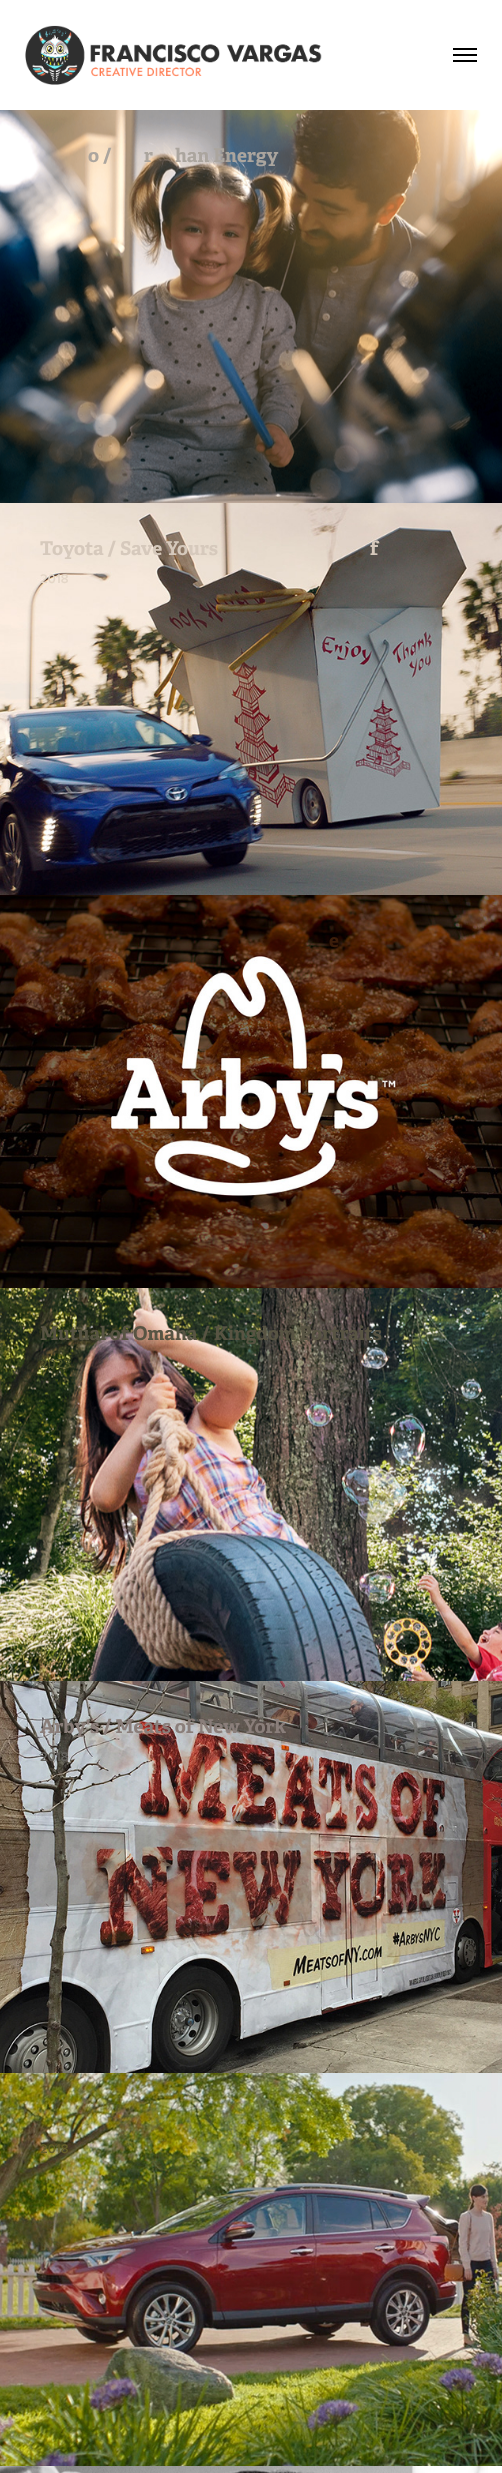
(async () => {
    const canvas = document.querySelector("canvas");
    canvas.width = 502;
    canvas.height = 2473;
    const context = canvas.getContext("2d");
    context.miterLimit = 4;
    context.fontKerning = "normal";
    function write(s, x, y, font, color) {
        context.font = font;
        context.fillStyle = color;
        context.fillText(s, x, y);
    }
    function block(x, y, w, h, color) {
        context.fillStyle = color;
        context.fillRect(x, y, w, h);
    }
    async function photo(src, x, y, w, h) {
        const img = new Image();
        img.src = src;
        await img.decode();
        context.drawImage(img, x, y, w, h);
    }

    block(0, 0, 502, 2473, "rgb(255, 255, 255)");
    await photo("media/1.png", 25, 25, 297, 60);
    block(453, 48, 24, 2, "rgb(0, 0, 0)");
    block(453, 54, 24, 2, "rgb(0, 0, 0)");
    block(453, 60, 24, 2, "rgb(0, 0, 0)");
    await photo("media/2.png", 0, 110, 502, 393);
    write("o /", 88, 162, "bold 19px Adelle", "rgb(171, 165, 158)");
    write("r", 144, 162, "bold 19px Adelle", "rgb(171, 165, 158)");
    write("han Energy", 175, 162, "bold 19px Adelle", "rgb(171, 165, 158)");
    await photo("media/3.png", 0, 503, 502, 392);
    write("Toyota / Save Yours", 40, 555, "bold 19px Adelle", "rgb(214, 201, 188)");
    write("f", 370, 555, "bold 19px Adelle", "rgb(214, 201, 188)");
    write("2018", 40, 583, "600 13px Proxima Nova", "rgb(228, 214, 199)");
    await photo("media/4.png", 0, 895, 502, 393);
    write("e", 329, 947, "bold 19px Adelle", "rgb(59, 29, 10)");
    await photo("media/5.png", 0, 1288, 502, 393);
    write("Mutual of Omaha / Kingdom Portraits", 40, 1340, "bold 19px Adelle", "rgb(88, 84, 67)");
    write("2023", 40, 1368, "600 13px Proxima Nova", "rgb(75, 82, 42)");
    await photo("media/6.png", 0, 1681, 502, 392);
    write("Arby's / Meats of New York", 40, 1733, "bold 19px Adelle", "rgb(138, 126, 122)");
    write("2018", 40, 1761, "600 13px Proxima Nova", "rgb(101, 99, 95)");
    await photo("media/7.png", 0, 2073, 502, 393);
    write("2018", 40, 2153, "600 13px Proxima Nova", "rgb(100, 94, 42)");
    await photo("media/8.png", 0, 2466, 488, 7);
})();
